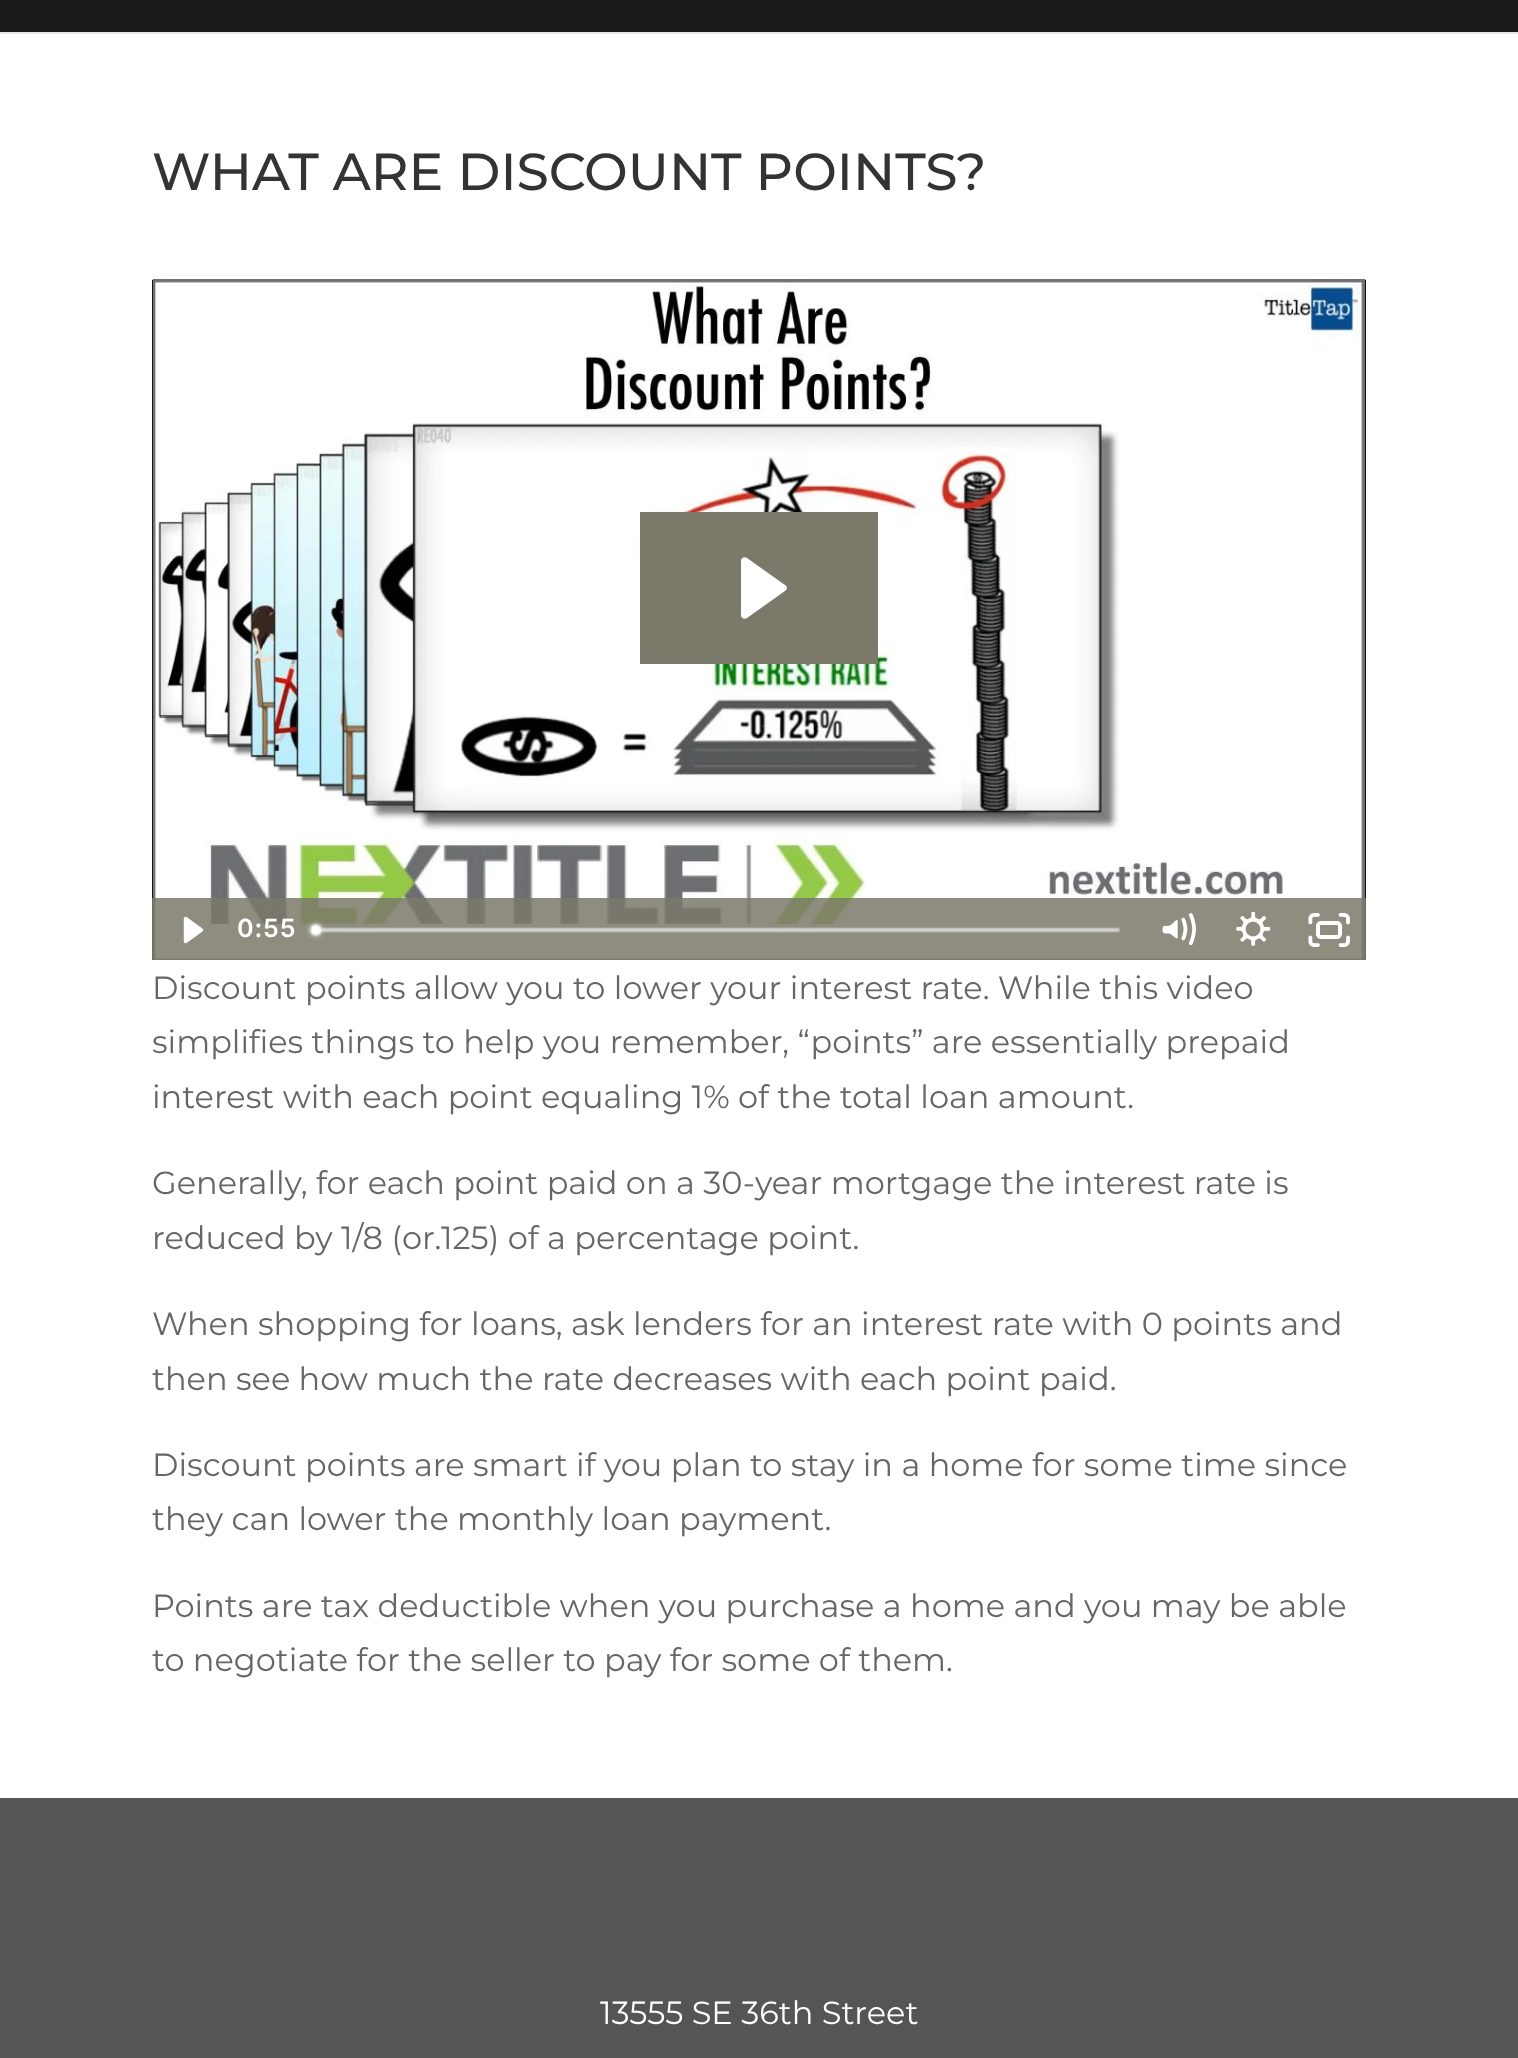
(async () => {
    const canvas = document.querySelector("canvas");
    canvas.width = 1518;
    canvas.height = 2058;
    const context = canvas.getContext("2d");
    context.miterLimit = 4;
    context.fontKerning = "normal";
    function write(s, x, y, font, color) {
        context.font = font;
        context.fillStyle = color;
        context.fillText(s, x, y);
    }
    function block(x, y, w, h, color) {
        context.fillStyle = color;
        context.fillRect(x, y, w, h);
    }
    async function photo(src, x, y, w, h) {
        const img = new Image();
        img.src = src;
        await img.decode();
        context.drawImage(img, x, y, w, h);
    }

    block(0, 0, 1518, 2058, "rgb(255, 255, 255)");
    block(0, 0, 1518, 32, "rgb(26, 26, 26)");
    block(0, 32, 1518, 2, "rgb(230, 230, 230)");
    write("WHAT ARE DISCOUNT POINTS?", 152, 190, "500 52px Montserrat", "rgb(51, 51, 51)");
    block(152, 280, 1214, 680, "rgb(0, 0, 0)");
    await photo("media/1.png", 152, 279, 1214, 681);
    block(640, 512, 238, 152, "rgb(123, 121, 106)");
    context.fillStyle = "rgb(255, 255, 255)";
    context.beginPath();
    context.moveTo(747, 558);
    context.bezierCurveTo(744, 556, 741, 558, 741, 561);
    context.lineTo(741, 615);
    context.bezierCurveTo(741, 618, 744, 620, 747, 618);
    context.lineTo(785, 591);
    context.bezierCurveTo(786, 590, 787, 589, 787, 588);
    context.bezierCurveTo(787, 587, 786, 585, 785, 585);
    context.closePath();
    context.fill("evenodd");
    block(152, 898, 1214, 62, "rgba(123, 121, 106, 0.85)");
    await photo("media/2.png", 183, 916, 21, 28);
    context.letterSpacing = "1px";
    write("0:55", 237, 937, "600 25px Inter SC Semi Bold", "rgb(255, 255, 255)");
    await photo("media/3.png", 306, 920, 815, 20);
    await photo("media/4.png", 1162, 913, 34, 33);
    await photo("media/5.png", 1236, 911, 35, 35);
    await photo("media/6.png", 1308, 913, 42, 34);
    context.letterSpacing = "0px";
    write("Discount points allow you to lower your interest rate. While this video", 152, 999, "32px Montserrat", "rgb(102, 102, 102)");
    write("simplifies things to help you remember, “points” are essentially prepaid", 152, 1053, "32px Montserrat", "rgb(102, 102, 102)");
    write("interest with each point equaling 1% of the total loan amount.", 152, 1108, "32px Montserrat", "rgb(102, 102, 102)");
    write("Generally, for each point paid on a 30-year mortgage the interest rate is", 152, 1194, "32px Montserrat", "rgb(102, 102, 102)");
    write("reduced by 1/8 (or.125) of a percentage point.", 152, 1249, "32px Montserrat", "rgb(102, 102, 102)");
    write("When shopping for loans, ask lenders for an interest rate with 0 points and", 152, 1335, "32px Montserrat", "rgb(102, 102, 102)");
    write("then see how much the rate decreases with each point paid.", 152, 1390, "32px Montserrat", "rgb(102, 102, 102)");
    write("Discount points are smart if you plan to stay in a home for some time since", 152, 1476, "32px Montserrat", "rgb(102, 102, 102)");
    write("they can lower the monthly loan payment.", 152, 1530, "32px Montserrat", "rgb(102, 102, 102)");
    write("Points are tax deductible when you purchase a home and you may be able", 152, 1617, "32px Montserrat", "rgb(102, 102, 102)");
    write("to negotiate for the seller to pay for some of them.", 152, 1671, "32px Montserrat", "rgb(102, 102, 102)");
    block(0, 1798, 1518, 260, "rgb(85, 85, 85)");
    write("13555 SE 36th Street", 600, 2024, "32px Montserrat", "rgb(255, 255, 255)");
})();
